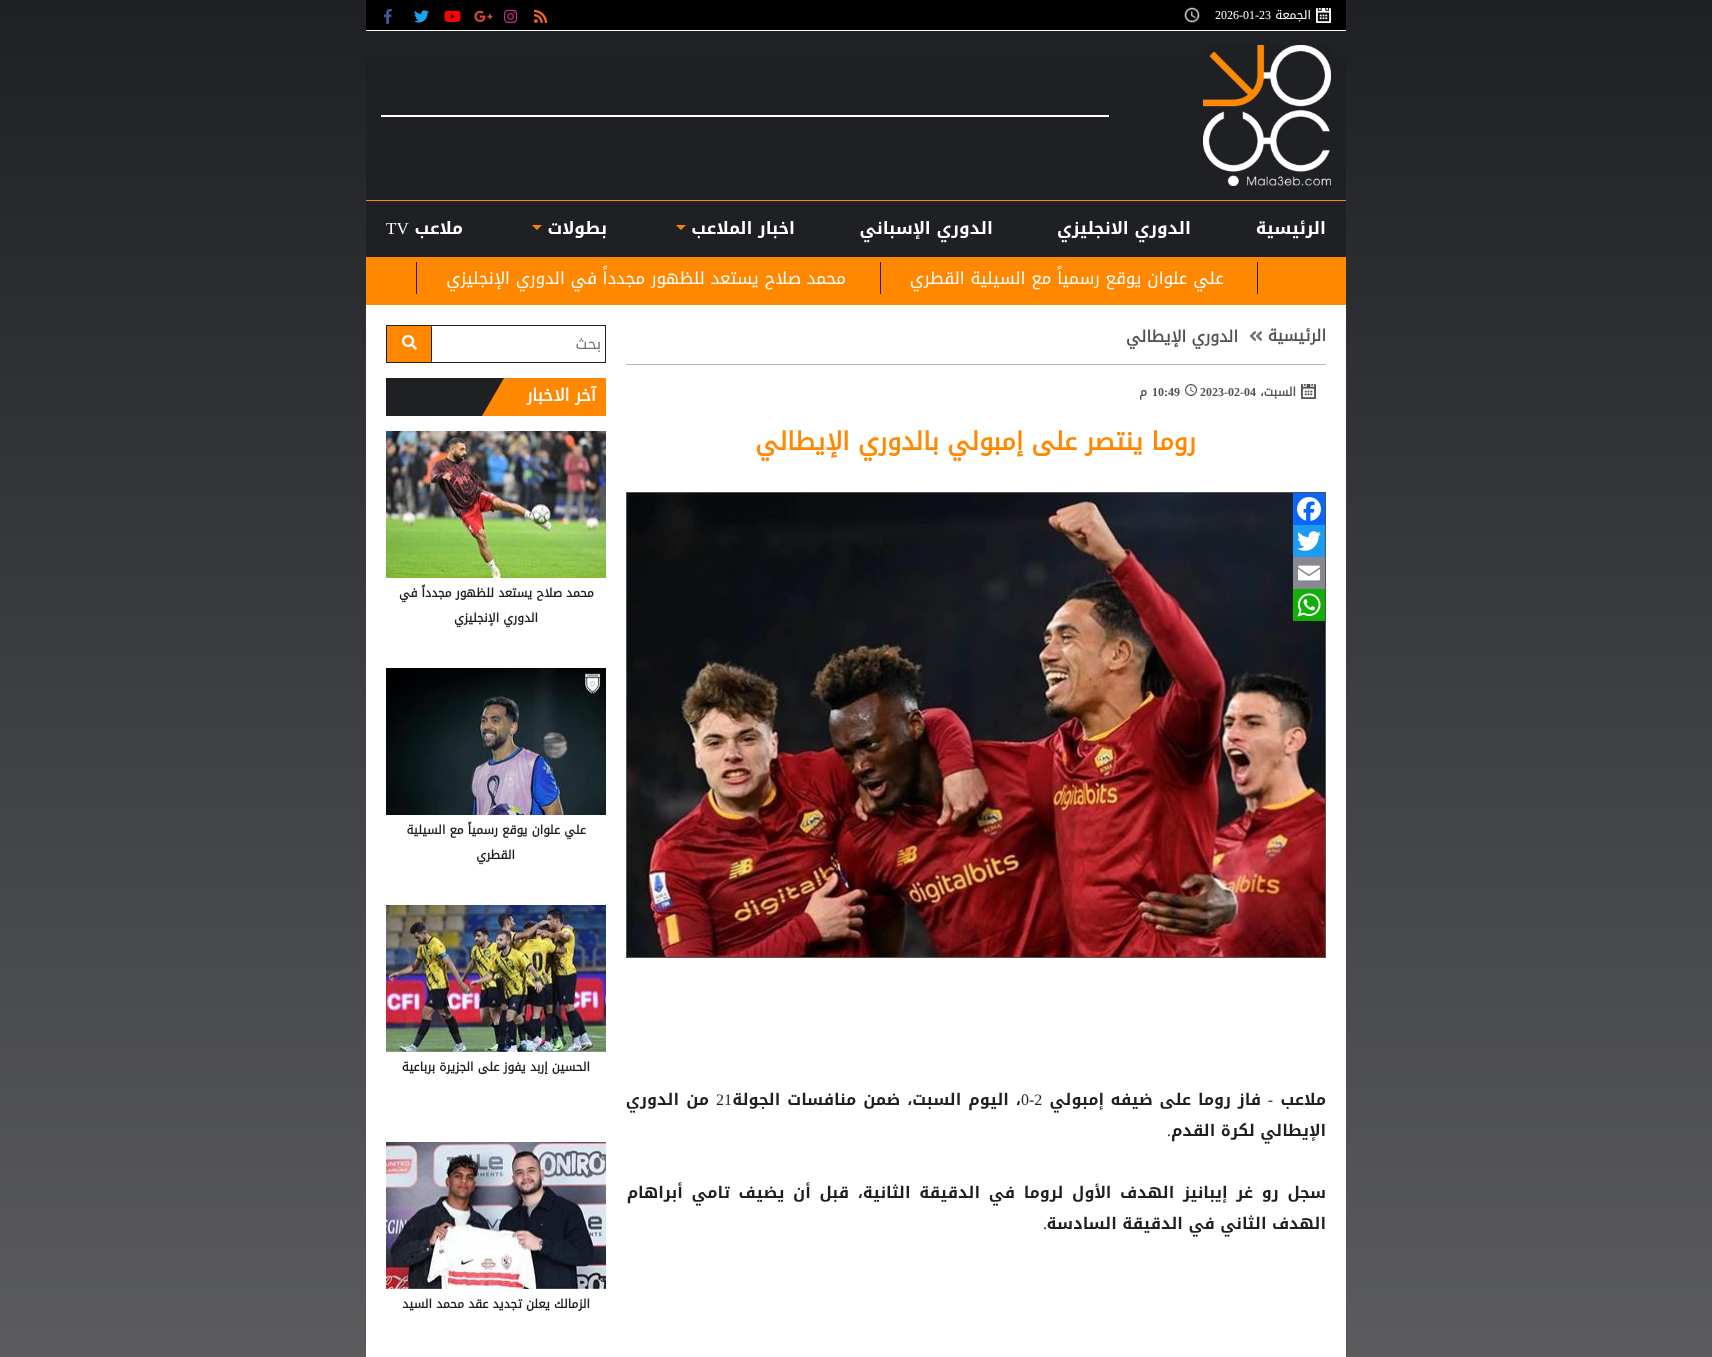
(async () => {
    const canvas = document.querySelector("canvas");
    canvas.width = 1712;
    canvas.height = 1357;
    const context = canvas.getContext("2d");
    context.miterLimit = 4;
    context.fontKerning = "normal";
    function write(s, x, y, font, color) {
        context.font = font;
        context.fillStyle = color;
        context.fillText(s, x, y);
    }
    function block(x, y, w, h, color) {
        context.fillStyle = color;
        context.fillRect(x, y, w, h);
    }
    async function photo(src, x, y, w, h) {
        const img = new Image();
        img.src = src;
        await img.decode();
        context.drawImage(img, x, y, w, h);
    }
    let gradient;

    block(0, 0, 1712, 1357, "rgb(255, 255, 255)");
    gradient = context.createLinearGradient(856, 0, 856, 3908);
    gradient.addColorStop(0, "rgb(31, 32, 36)");
    gradient.addColorStop(1, "rgb(204, 204, 204)");
    context.fillStyle = gradient;
    context.fillRect(0, 0, 1712, 1357);
    block(366, 0, 980, 30, "rgb(0, 0, 0)");
    block(366, 30, 980, 1, "rgb(255, 255, 255)");
    await photo("media/1.png", 1316, 8, 15, 15);
    context.direction = "rtl";
    write("الجمعة", 1311, 19, "12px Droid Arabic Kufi", "rgb(255, 255, 255)");
    context.direction = "ltr";
    write("2026-01-23", 1215, 19, "12px Liberation Serif", "rgb(255, 255, 255)");
    await photo("media/2.png", 1184, 7, 16, 16);
    await photo("media/3.png", 534, 9, 14, 14);
    await photo("media/4.png", 504, 9, 14, 14);
    await photo("media/5.png", 474, 10, 19, 12);
    await photo("media/6.png", 444, 10, 17, 12);
    await photo("media/7.png", 414, 10, 15, 13);
    await photo("media/8.png", 384, 8, 8, 16);
    block(366, 57, 980, 143, "rgb(31, 32, 36)");
    block(366, 200, 980, 1, "rgb(255, 136, 0)");
    await photo("media/9.png", 1203, 45, 128, 141);
    block(381, 115, 728, 2, "rgb(255, 255, 255)");
    block(366, 201, 980, 56, "rgb(31, 32, 36)");
    block(366, 257, 980, 48, "rgb(255, 136, 0)");
    context.direction = "rtl";
    write("الرئيسية", 1326, 234, "bold 17px Droid Arabic Kufi", "rgb(255, 255, 255)");
    write("الدوري الانجليزي", 1191, 234, "bold 17px Droid Arabic Kufi", "rgb(255, 255, 255)");
    write("الدوري الإسباني", 993, 234, "bold 17px Droid Arabic Kufi", "rgb(255, 255, 255)");
    write("اخبار الملاعب", 795, 234, "bold 17px Droid Arabic Kufi", "rgb(255, 255, 255)");
    context.fillStyle = "rgb(245, 132, 3)";
    context.beginPath();
    context.moveTo(676, 225);
    context.lineTo(686, 225);
    context.lineTo(681, 230);
    context.closePath();
    context.fill();
    write("بطولات", 607, 234, "bold 17px Droid Arabic Kufi", "rgb(255, 255, 255)");
    context.fillStyle = "rgb(245, 132, 3)";
    context.beginPath();
    context.moveTo(532, 225);
    context.lineTo(542, 225);
    context.lineTo(537, 230);
    context.closePath();
    context.fill();
    write("ملاعب", 463, 234, "bold 17px Droid Arabic Kufi", "rgb(255, 255, 255)");
    context.direction = "ltr";
    write("TV", 386, 234, "17px Liberation Serif", "rgb(255, 255, 255)");
    block(366, 305, 980, 1052, "rgb(255, 255, 255)");
    block(1257, 262, 1, 32, "rgb(31, 32, 36)");
    context.direction = "rtl";
    write("علي علوان يوقع رسمياً مع السيلية القطري", 1224, 284, "16.95px Droid Arabic Kufi", "rgb(255, 255, 255)");
    block(880, 262, 1, 32, "rgb(31, 32, 36)");
    write("محمد صلاح يستعد للظهور مجدداً في الدوري الإنجليزي", 846, 284, "16.95px Droid Arabic Kufi", "rgb(255, 255, 255)");
    block(416, 262, 1, 32, "rgb(31, 32, 36)");
    block(626, 364, 700, 1, "rgb(183, 183, 183)");
    write("الرئيسية", 1326, 341, "bold 16px 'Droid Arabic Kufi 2'", "rgb(82, 82, 82)");
    await photo("media/10.png", 1249, 331, 14, 10);
    write("الدوري الإيطالي", 1238, 342, "bold 16px 'Droid Arabic Kufi 2'", "rgb(82, 82, 82)");
    await photo("media/11.png", 1301, 384, 15, 15);
    write("السبت،", 1296, 396, "bold 12px 'Droid Arabic Kufi 2'", "rgb(82, 82, 82)");
    context.direction = "ltr";
    write("2023-02-04", 1200, 396, "bold 12px Liberation Serif", "rgb(82, 82, 82)");
    await photo("media/12.png", 1185, 384, 12, 12);
    write("10:49", 1152, 396, "bold 12px Liberation Serif", "rgb(82, 82, 82)");
    context.direction = "rtl";
    write("م", 1147, 396, "bold 12px 'Droid Arabic Kufi 2'", "rgb(82, 82, 82)");
    write("روما ينتصر على إمبولي بالدوري الإيطالي", 1196, 450, "bold 25px 'Droid Arabic Kufi 2'", "rgb(255, 136, 0)");
    context.strokeStyle = "rgb(82, 82, 82)";
    context.strokeRect(626.5, 492.5, 699, 465);
    await photo("media/13.png", 627, 493, 698, 464);
    block(1293, 493, 32, 32, "rgb(8, 102, 255)");
    await photo("media/14.png", 1297, 497, 24, 24);
    block(1293, 525, 32, 32, "rgb(29, 155, 240)");
    await photo("media/15.png", 1297, 531, 24, 20);
    block(1293, 557, 32, 32, "rgb(136, 137, 144)");
    await photo("media/16.png", 1298, 565, 22, 16);
    block(1293, 589, 32, 32, "rgb(18, 175, 10)");
    await photo("media/17.png", 1297, 593, 24, 24);
    write("ملاعب", 1326, 1105, "bold 16px Droid Arabic Kufi", "rgb(31, 32, 36)");
    write("-", 1273, 1105, "16px Liberation Serif", "rgb(31, 32, 36)");
    write("فاز", 1261, 1105, "bold 16px Droid Arabic Kufi", "rgb(31, 32, 36)");
    write("روما", 1231, 1105, "bold 16px Droid Arabic Kufi", "rgb(31, 32, 36)");
    context.wordSpacing = "1.5px";
    write("على ضيفه", 1191, 1105, "bold 16px Droid Arabic Kufi", "rgb(31, 32, 36)");
    context.wordSpacing = "0px";
    write("إمبولي", 1104, 1105, "bold 16px Droid Arabic Kufi", "rgb(31, 32, 36)");
    context.direction = "ltr";
    write("0-2", 1021, 1105, "16px Liberation Serif", "rgb(31, 32, 36)");
    context.wordSpacing = "1.5px";
    context.direction = "rtl";
    write("، اليوم السبت، ضمن منافسات الجولة", 1021, 1105, "bold 16px Droid Arabic Kufi", "rgb(31, 32, 36)");
    context.wordSpacing = "0px";
    context.direction = "ltr";
    write("21", 716, 1105, "16px Liberation Serif", "rgb(31, 32, 36)");
    context.direction = "rtl";
    write("من", 709, 1105, "bold 16px Droid Arabic Kufi", "rgb(31, 32, 36)");
    write("الدوري", 679, 1105, "bold 16px Droid Arabic Kufi", "rgb(31, 32, 36)");
    write("الإيطالي", 1326, 1136, "bold 16px Droid Arabic Kufi", "rgb(31, 32, 36)");
    write("لكرة القدم", 1255, 1136, "bold 16px Droid Arabic Kufi", "rgb(31, 32, 36)");
    write(".", 1171, 1136, "16px Liberation Serif", "rgb(31, 32, 36)");
    context.wordSpacing = "3.25px";
    write("سجل رو غر إيبانيز الهدف الأول لروما في الدقيقة الثانية، قبل أن يضيف تامي أبراهام", 1326, 1198, "bold 16px Droid Arabic Kufi", "rgb(31, 32, 36)");
    context.wordSpacing = "0px";
    write("الهدف الثاني في الدقيقة السادسة", 1326, 1229, "bold 16px Droid Arabic Kufi", "rgb(31, 32, 36)");
    write(".", 1047, 1229, "16px Liberation Serif", "rgb(31, 32, 36)");
    context.strokeStyle = "rgb(31, 32, 36)";
    context.strokeRect(386.5, 325.5, 219, 37);
    write("بحث", 601, 349, "15px Droid Arabic Kufi", "rgb(108, 117, 125)");
    block(387, 326, 45, 36, "rgb(255, 136, 0)");
    context.fillStyle = "rgb(31, 32, 36)";
    context.beginPath();
    context.moveTo(432, 326);
    context.lineTo(432, 362);
    context.lineTo(431, 361);
    context.lineTo(431, 327);
    context.closePath();
    context.fill();
    await photo("media/18.png", 402, 334, 15, 16);
    block(386, 378, 118, 38, "rgb(31, 32, 36)");
    context.save();
    context.beginPath();
    context.rect(386, 378, 220, 38);
    context.clip();
    context.fillStyle = "rgb(255, 136, 0)";
    context.beginPath();
    context.moveTo(504, 378);
    context.lineTo(629, 378);
    context.lineTo(607, 416);
    context.lineTo(482, 416);
    context.closePath();
    context.fill();
    context.restore();
    write("آخر الاخبار", 596, 401, "bold 16.95px 'Droid Arabic Kufi 2'", "rgb(255, 255, 255)");
    await photo("media/19.png", 386, 431, 220, 147);
    write("محمد صلاح يستعد للظهور مجدداً في", 594, 597, "bold 12px 'Droid Arabic Kufi 2'", "rgb(31, 32, 36)");
    write("الدوري الإنجليزي", 538, 622, "bold 12px 'Droid Arabic Kufi 2'", "rgb(31, 32, 36)");
    await photo("media/20.png", 386, 668, 220, 147);
    write("علي علوان يوقع رسمياً مع السيلية", 586, 834, "bold 12px 'Droid Arabic Kufi 2'", "rgb(31, 32, 36)");
    write("القطري", 515, 859, "bold 12px 'Droid Arabic Kufi 2'", "rgb(31, 32, 36)");
    await photo("media/21.png", 386, 905, 220, 147);
    write("الحسين إربد يفوز على الجزيرة برباعية", 590, 1071, "bold 12px 'Droid Arabic Kufi 2'", "rgb(31, 32, 36)");
    await photo("media/22.png", 386, 1142, 220, 147);
    write("الزمالك يعلن تجديد عقد محمد السيد", 590, 1308, "bold 12px 'Droid Arabic Kufi 2'", "rgb(31, 32, 36)");
})();
